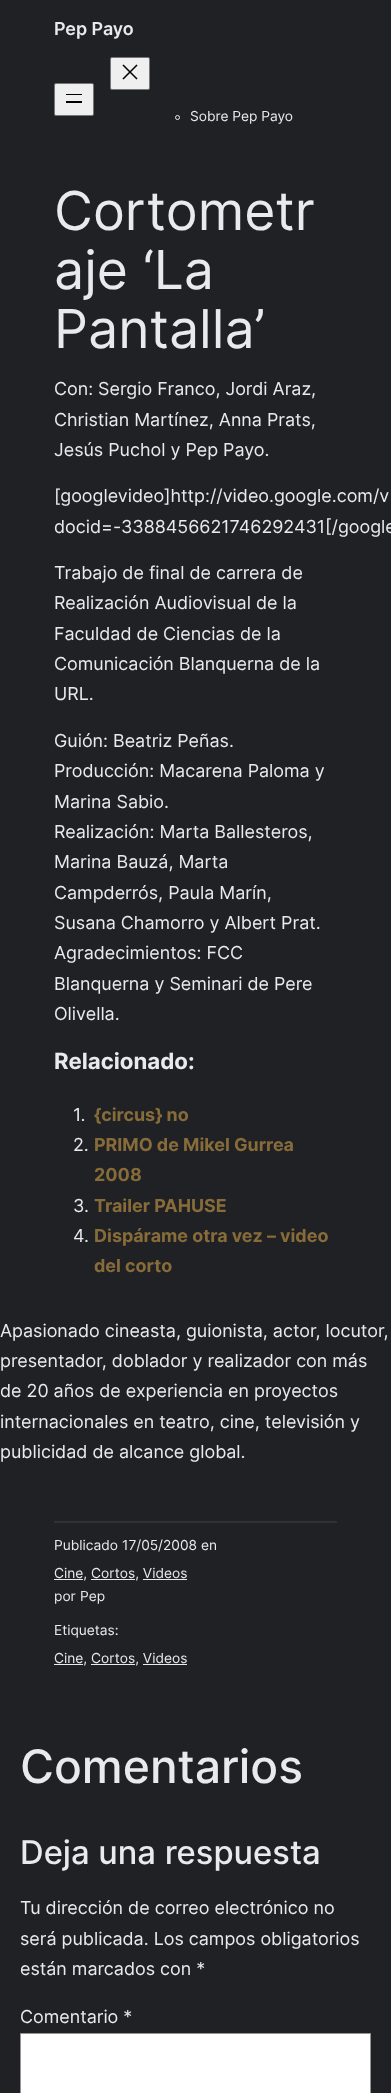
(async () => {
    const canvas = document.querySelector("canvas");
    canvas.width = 391;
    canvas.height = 2093;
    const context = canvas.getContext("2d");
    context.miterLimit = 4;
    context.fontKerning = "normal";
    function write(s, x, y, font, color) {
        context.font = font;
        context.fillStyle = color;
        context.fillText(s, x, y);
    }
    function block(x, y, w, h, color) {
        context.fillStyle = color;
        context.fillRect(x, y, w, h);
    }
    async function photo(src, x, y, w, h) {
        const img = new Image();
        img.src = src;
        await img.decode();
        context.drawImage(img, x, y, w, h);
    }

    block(0, 0, 391, 2093, "rgb(32, 33, 36)");
    write("Pep Payo", 54, 35, "600 17.9px Inter", "rgb(232, 234, 237)");
    context.fillStyle = "rgb(239, 239, 239)";
    context.beginPath();
    context.roundRect(54.5, 83.5, 39, 32, 1.5);
    context.fill();
    context.strokeStyle = "rgb(118, 118, 118)";
    context.stroke();
    block(66, 94, 16, 1, "rgb(0, 0, 0)");
    block(66, 101, 16, 2, "rgb(0, 0, 0)");
    context.fillStyle = "rgb(239, 239, 239)";
    context.beginPath();
    context.roundRect(110.5, 57.5, 39, 32, 1.5);
    context.fill();
    context.stroke();
    await photo("media/1.png", 122, 64, 16, 16);
    context.beginPath();
    context.arc(177.5, 117.5, 2, 0, Math.PI * 2);
    context.strokeStyle = "rgb(232, 234, 237)";
    context.stroke();
    write("Sobre Pep Payo", 190, 121, "13.75px Inter", "rgb(232, 234, 237)");
    write("Cortometr", 54, 230, "53.5px Inter", "rgb(232, 234, 237)");
    write("aje ‘La", 54, 289, "53.5px Inter", "rgb(232, 234, 237)");
    write("Pantalla’", 54, 348, "53.5px Inter", "rgb(232, 234, 237)");
    write("Con: Sergio Franco, Jordi Araz,", 54, 395, "17.9px Inter", "rgb(232, 234, 237)");
    write("Christian Martínez, Anna Prats,", 54, 426, "17.9px Inter", "rgb(232, 234, 237)");
    write("Jesús Puchol y Pep Payo.", 54, 456, "17.9px Inter", "rgb(232, 234, 237)");
    write("[googlevideo]http://video.google.com/v", 54, 502, "17.9px Inter", "rgb(232, 234, 237)");
    write("docid=-3388456621746292431[/google", 54, 533, "17.9px Inter", "rgb(232, 234, 237)");
    write("Trabajo de final de carrera de", 54, 579, "17.9px Inter", "rgb(232, 234, 237)");
    write("Realización Audiovisual de la", 54, 609, "17.9px Inter", "rgb(232, 234, 237)");
    write("Faculdad de Ciencias de la", 54, 640, "17.9px Inter", "rgb(232, 234, 237)");
    write("Comunicación Blanquerna de la", 54, 670, "17.9px Inter", "rgb(232, 234, 237)");
    write("URL.", 54, 700, "17.9px Inter", "rgb(232, 234, 237)");
    write("Guión: Beatriz Peñas.", 54, 747, "17.9px Inter", "rgb(232, 234, 237)");
    write("Producción: Macarena Paloma y", 54, 777, "17.9px Inter", "rgb(232, 234, 237)");
    write("Marina Sabio.", 54, 808, "17.9px Inter", "rgb(232, 234, 237)");
    write("Realización: Marta Ballesteros,", 54, 838, "17.9px Inter", "rgb(232, 234, 237)");
    write("Marina Bauzá, Marta", 54, 868, "17.9px Inter", "rgb(232, 234, 237)");
    write("Campderrós, Paula Marín,", 54, 899, "17.9px Inter", "rgb(232, 234, 237)");
    write("Susana Chamorro y Albert Prat.", 54, 929, "17.9px Inter", "rgb(232, 234, 237)");
    write("Agradecimientos: FCC", 54, 959, "17.9px Inter", "rgb(232, 234, 237)");
    write("Blanquerna y Seminari de Pere", 54, 990, "17.9px Inter", "rgb(232, 234, 237)");
    write("Olivella.", 54, 1020, "17.9px Inter", "rgb(232, 234, 237)");
    write("Relacionado:", 54, 1069, "bold 22.25px Inter", "rgb(232, 234, 237)");
    write("1.", 73, 1121, "17.9px Inter", "rgb(232, 234, 237)");
    write("{circus} no", 94, 1121, "bold 17.9px Inter", "rgb(135, 108, 58)");
    write("2.", 73, 1151, "17.9px Inter", "rgb(232, 234, 237)");
    write("PRIMO de Mikel Gurrea", 94, 1151, "bold 17.9px Inter", "rgb(135, 108, 58)");
    write("2008", 94, 1181, "bold 17.9px Inter", "rgb(135, 108, 58)");
    write("3.", 73, 1212, "17.9px Inter", "rgb(232, 234, 237)");
    write("Trailer PAHUSE", 94, 1212, "bold 17.9px Inter", "rgb(135, 108, 58)");
    write("4.", 73, 1242, "17.9px Inter", "rgb(232, 234, 237)");
    write("Dispárame otra vez – video", 94, 1242, "bold 17.9px Inter", "rgb(135, 108, 58)");
    write("del corto", 94, 1272, "bold 17.9px Inter", "rgb(135, 108, 58)");
    write("Apasionado cineasta, guionista, actor, locutor,", 0, 1337, "17.9px Inter", "rgb(232, 234, 237)");
    write("presentador, doblador y realizador con más", 0, 1367, "17.9px Inter", "rgb(232, 234, 237)");
    write("de 20 años de experiencia en proyectos", 0, 1397, "17.9px Inter", "rgb(232, 234, 237)");
    write("internacionales en teatro, cine, televisión y", 0, 1428, "17.9px Inter", "rgb(232, 234, 237)");
    write("publicidad de alcance global.", 0, 1458, "17.9px Inter", "rgb(232, 234, 237)");
    block(54, 1521, 283, 2, "rgb(48, 49, 52)");
    write("Publicado", 54, 1550, "13.75px Inter", "rgb(232, 234, 237)");
    write("17/05/2008", 122, 1550, "13.75px Inter", "rgb(232, 234, 237)");
    write("en", 201, 1550, "13.75px Inter", "rgb(232, 234, 237)");
    block(54, 1579, 29, 1, "rgb(232, 234, 237)");
    write("Cine, Cortos, Videos", 54, 1578, "13.75px Inter", "rgb(232, 234, 237)");
    block(91, 1579, 44, 1, "rgb(232, 234, 237)");
    block(143, 1579, 44, 1, "rgb(232, 234, 237)");
    write("por", 54, 1601, "13.75px Inter", "rgb(232, 234, 237)");
    write("Pep", 80, 1601, "13.75px Inter", "rgb(232, 234, 237)");
    write("Etiquetas:", 54, 1635, "13.75px Inter", "rgb(232, 234, 237)");
    block(54, 1664, 29, 1, "rgb(232, 234, 237)");
    write("Cine, Cortos, Videos", 54, 1663, "13.75px Inter", "rgb(232, 234, 237)");
    block(91, 1664, 44, 1, "rgb(232, 234, 237)");
    block(143, 1664, 44, 1, "rgb(232, 234, 237)");
    write("Comentarios", 20, 1783, "500 46.25px Inter", "rgb(232, 234, 237)");
    write("Deja una respuesta", 20, 1864, "500 32.75px Inter", "rgb(232, 234, 237)");
    write("Tu dirección de correo electrónico no", 20, 1914, "17.9px Inter", "rgb(232, 234, 237)");
    write("será publicada. Los campos obligatorios", 20, 1945, "17.9px Inter", "rgb(232, 234, 237)");
    write("están marcados con *", 20, 1975, "17.9px Inter", "rgb(232, 234, 237)");
    write("Comentario *", 20, 2023, "17.9px Inter", "rgb(232, 234, 237)");
    context.fillStyle = "rgb(255, 255, 255)";
    context.beginPath();
    context.rect(20.5, 2033.5, 350, 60);
    context.fill();
    context.strokeStyle = "rgb(148, 148, 148)";
    context.stroke();
})();
